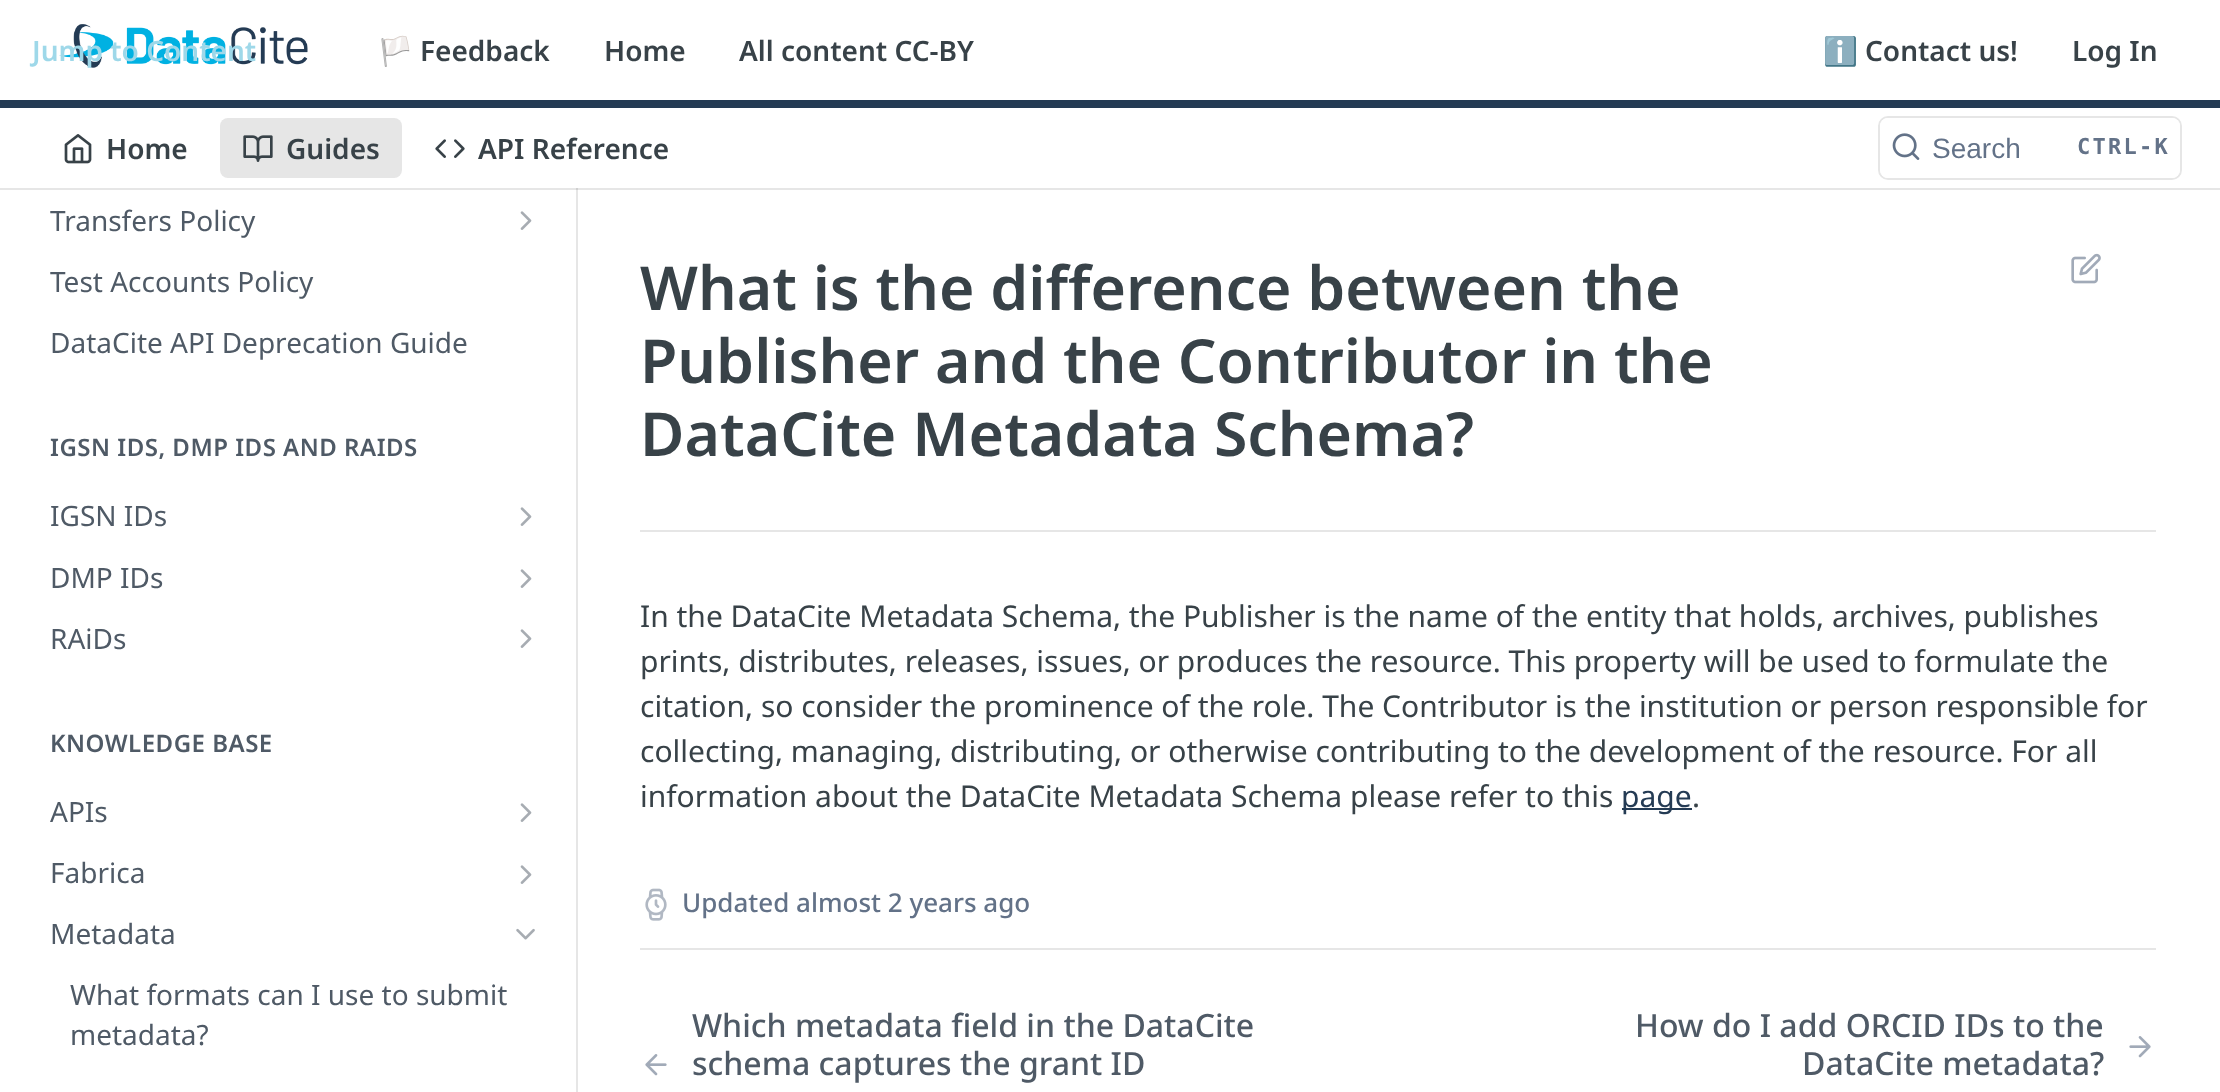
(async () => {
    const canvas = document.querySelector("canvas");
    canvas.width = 2220;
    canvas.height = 1092;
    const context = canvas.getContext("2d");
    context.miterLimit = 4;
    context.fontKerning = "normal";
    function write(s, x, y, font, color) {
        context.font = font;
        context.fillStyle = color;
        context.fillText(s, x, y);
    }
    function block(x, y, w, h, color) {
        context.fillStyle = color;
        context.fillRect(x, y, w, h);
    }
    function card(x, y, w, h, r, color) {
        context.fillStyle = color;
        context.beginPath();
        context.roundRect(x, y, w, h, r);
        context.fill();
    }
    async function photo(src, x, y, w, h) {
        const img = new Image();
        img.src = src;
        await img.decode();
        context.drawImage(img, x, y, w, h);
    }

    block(0, 0, 2220, 1092, "rgb(255, 255, 255)");
    block(0, 188, 2220, 2, "rgb(230, 230, 230)");
    block(0, 100, 2220, 8, "rgb(36, 59, 84)");
    await photo("media/1.png", 59, 24, 249, 44);
    write("Jump to Content", 32, 61, "600 28px Noto Sans", "rgb(158, 216, 233)");
    write("🏳️", 378, 61, "bold 28px Noto Color Emoji", "rgb(56, 66, 72)");
    write("Feedback", 420, 61, "600 28px Noto Sans", "rgb(56, 66, 72)");
    write("Home", 604, 61, "600 28px Noto Sans", "rgb(56, 66, 72)");
    write("All content CC-BY", 739, 61, "600 28px Noto Sans", "rgb(56, 66, 72)");
    write("ℹ️", 1823, 61, "bold 28px Noto Color Emoji", "rgb(56, 66, 72)");
    write("Contact us!", 1865, 61, "600 28px Noto Sans", "rgb(56, 66, 72)");
    write("Log In", 2072, 61, "600 28px Noto Sans", "rgb(56, 66, 72)");
    await photo("media/2.png", 64, 134, 28, 30);
    write("Home", 106, 159, "600 28px Noto Sans", "rgb(56, 66, 72)");
    card(220, 118, 182, 60, 8, "rgb(230, 230, 230)");
    await photo("media/3.png", 243, 135, 30, 27);
    write("Guides", 286, 159, "600 28px Noto Sans", "rgb(56, 66, 72)");
    await photo("media/4.png", 435, 139, 30, 19);
    write("API Reference", 478, 159, "600 28px Noto Sans", "rgb(56, 66, 72)");
    context.beginPath();
    context.roundRect(1879, 117, 302, 62, 9);
    context.strokeStyle = "rgb(230, 230, 230)";
    context.lineWidth = 2;
    context.stroke();
    card(1880, 118, 300, 60, 8, "rgb(255, 255, 255)");
    await photo("media/5.png", 1892, 133, 28, 27);
    write("Search", 1932, 158, "28px Liberation Sans", "rgb(99, 114, 136)");
    context.letterSpacing = "2.25px";
    write("CTRL-K", 2077, 154, "bold 22px DejaVu Sans Mono", "rgb(99, 114, 136)");
    block(576, 188, 2, 904, "rgb(230, 230, 230)");
    block(576, 188, 2, 2, "rgb(207, 207, 207)");
    context.letterSpacing = "0px";
    write("Transfers Policy", 50, 231, "28px Noto Sans", "rgb(79, 90, 102)");
    await photo("media/6.png", 520, 211, 12, 19);
    write("Test Accounts Policy", 50, 292, "28px Noto Sans", "rgb(79, 90, 102)");
    write("DataCite API Deprecation Guide", 50, 353, "28px Noto Sans", "rgb(79, 90, 102)");
    context.letterSpacing = "0.5px";
    write("IGSN IDS, DMP IDS AND RAIDS", 50, 456, "600 24px Noto Sans", "rgb(79, 90, 102)");
    context.letterSpacing = "0px";
    write("IGSN IDs", 50, 526, "28px Noto Sans", "rgb(79, 90, 102)");
    await photo("media/6.png", 520, 507, 12, 19);
    write("DMP IDs", 50, 588, "28px Noto Sans", "rgb(79, 90, 102)");
    await photo("media/6.png", 520, 569, 12, 19);
    write("RAiDs", 50, 649, "28px Noto Sans", "rgb(79, 90, 102)");
    await photo("media/6.png", 520, 629, 12, 19);
    context.letterSpacing = "0.5px";
    write("KNOWLEDGE BASE", 50, 752, "600 24px Noto Sans", "rgb(79, 90, 102)");
    context.letterSpacing = "0px";
    write("APIs", 50, 822, "28px Noto Sans", "rgb(79, 90, 102)");
    await photo("media/6.png", 520, 803, 12, 19);
    write("Fabrica", 50, 883, "28px Noto Sans", "rgb(79, 90, 102)");
    await photo("media/6.png", 520, 865, 12, 19);
    write("Metadata", 50, 944, "28px Noto Sans", "rgb(79, 90, 102)");
    await photo("media/7.png", 516, 928, 19, 12);
    write("What formats can I use to submit", 70, 1005, "28px Noto Sans", "rgb(79, 90, 102)");
    write("metadata?", 70, 1045, "28px Noto Sans", "rgb(79, 90, 102)");
    block(640, 530, 1516, 2, "rgb(230, 230, 230)");
    write("What is the difference between the", 640, 310, "600 60.75px Noto Sans", "rgb(56, 66, 72)");
    write("Publisher and the Contributor in the", 640, 383, "600 60.75px Noto Sans", "rgb(56, 66, 72)");
    write("DataCite Metadata Schema?", 640, 456, "600 60.75px Noto Sans", "rgb(56, 66, 72)");
    await photo("media/8.png", 2071, 253, 30, 31);
    write("In the DataCite Metadata Schema, the Publisher is the name of the entity that holds, archives, publishes", 640, 627, "30px Noto Sans", "rgb(56, 66, 72)");
    write("prints, distributes, releases, issues, or produces the resource. This property will be used to formulate the", 640, 672, "30px Noto Sans", "rgb(56, 66, 72)");
    write("citation, so consider the prominence of the role. The Contributor is the institution or person responsible for", 640, 717, "30px Noto Sans", "rgb(56, 66, 72)");
    write("collecting, managing, distributing, or otherwise contributing to the development of the resource. For all", 640, 762, "30px Noto Sans", "rgb(56, 66, 72)");
    write("information about the DataCite Metadata Schema please refer to this", 640, 807, "30px Noto Sans", "rgb(56, 66, 72)");
    block(1622, 808, 70, 2, "rgb(36, 59, 84)");
    write("page", 1621, 807, "30px Noto Sans", "rgb(36, 59, 84)");
    write(".", 1692, 807, "30px Noto Sans", "rgb(56, 66, 72)");
    await photo("media/9.png", 645, 888, 22, 33);
    write("Updated almost 2 years ago", 682, 912, "500 26px Noto Sans", "rgb(99, 114, 136)");
    block(640, 948, 1516, 2, "rgb(230, 230, 230)");
    await photo("media/10.png", 645, 1054, 22, 22);
    write("Which metadata field in the DataCite", 692, 1037, "500 32px Noto Sans", "rgb(79, 90, 102)");
    write("schema captures the grant ID", 692, 1075, "500 32px Noto Sans", "rgb(79, 90, 102)");
    write("How do I add ORCID IDs to the", 1635, 1037, "500 32px Noto Sans", "rgb(79, 90, 102)");
    write("DataCite metadata?", 1802, 1075, "500 32px Noto Sans", "rgb(79, 90, 102)");
    await photo("media/11.png", 2129, 1036, 22, 22);
})();
